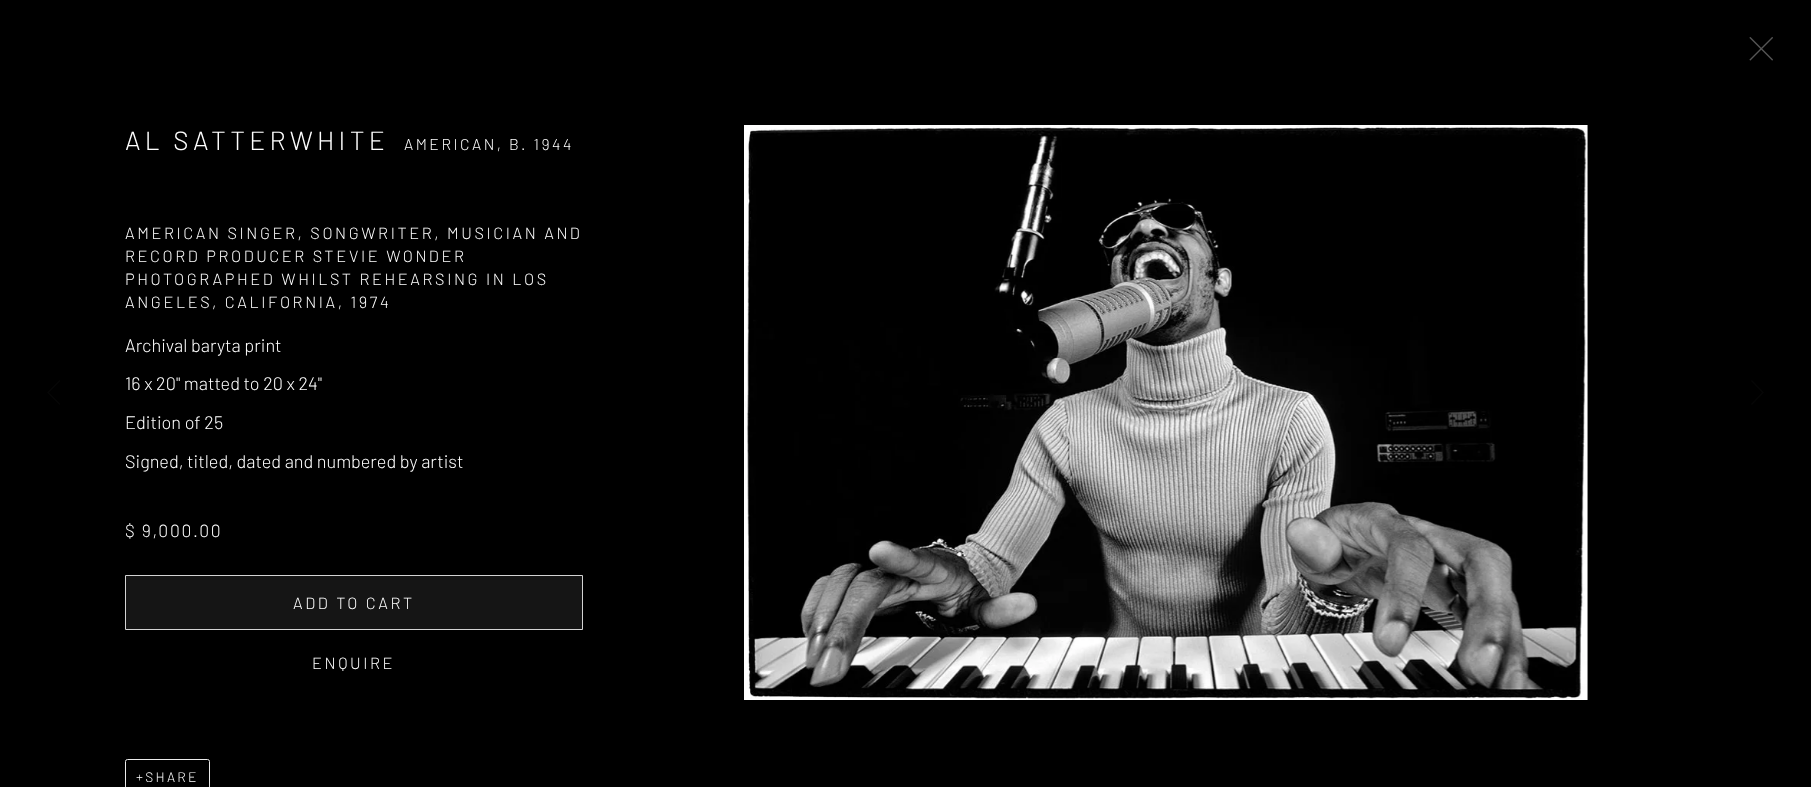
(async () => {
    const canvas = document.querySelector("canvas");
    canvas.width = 1811;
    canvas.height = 787;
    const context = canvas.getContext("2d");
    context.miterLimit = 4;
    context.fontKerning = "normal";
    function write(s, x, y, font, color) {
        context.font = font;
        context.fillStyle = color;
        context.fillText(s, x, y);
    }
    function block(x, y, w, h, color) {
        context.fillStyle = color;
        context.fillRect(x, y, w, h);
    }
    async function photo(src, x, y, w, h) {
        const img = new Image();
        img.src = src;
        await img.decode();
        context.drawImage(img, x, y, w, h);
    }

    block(0, 0, 1811, 787, "rgb(0, 0, 0)");
    await photo("media/1.png", 1749, 37, 24, 24);
    context.letterSpacing = "4.25px";
    write("AL SATTERWHITE", 125, 150, "300 26.25px Barlow", "rgb(255, 255, 255)");
    context.letterSpacing = "2.5px";
    write("AMERICAN, B. 1944", 404, 150, "300 15.6px Barlow", "rgb(255, 255, 255)");
    context.letterSpacing = "2.6px";
    write("AMERICAN SINGER, SONGWRITER, MUSICIAN AND", 125, 239, "300 16.25px Barlow", "rgb(255, 255, 255)");
    write("RECORD PRODUCER STEVIE WONDER", 125, 262, "300 16.25px Barlow", "rgb(255, 255, 255)");
    write("PHOTOGRAPHED WHILST REHEARSING IN LOS", 125, 285, "300 16.25px Barlow", "rgb(255, 255, 255)");
    write("ANGELES, CALIFORNIA, 1974", 125, 308, "300 16.25px Barlow", "rgb(255, 255, 255)");
    context.letterSpacing = "0px";
    write("Archival baryta print", 125, 352, "300 18.1px Barlow", "rgb(255, 255, 255)");
    write("16 x 20\" matted to 20 x 24\"", 125, 390, "300 18.1px Barlow", "rgb(255, 255, 255)");
    write("Edition of 25", 125, 429, "300 18.1px Barlow", "rgb(255, 255, 255)");
    write("Signed, titled, dated and numbered by artist", 125, 468, "300 18.1px Barlow", "rgb(255, 255, 255)");
    context.letterSpacing = "1.75px";
    write("$ 9,000.00", 125, 537, "300 17.5px Barlow", "rgb(255, 255, 255)");
    context.fillStyle = "rgb(21, 21, 21)";
    context.beginPath();
    context.rect(125.5, 575.5, 457, 54);
    context.fill();
    context.strokeStyle = "rgb(211, 211, 211)";
    context.stroke();
    context.letterSpacing = "2.6px";
    write("ADD TO CART", 293, 609, "300 16.25px Barlow", "rgb(255, 255, 255)");
    write("ENQUIRE", 312, 669, "300 16.25px Barlow", "rgb(255, 255, 255)");
    context.beginPath();
    context.roundRect(125.5, 759.5, 84, 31, 2);
    context.strokeStyle = "rgb(235, 235, 235)";
    context.stroke();
    context.letterSpacing = "2.25px";
    write("+SHARE", 136, 782, "300 13.75px Barlow", "rgb(255, 255, 255)");
    await photo("media/2.png", 744, 125, 844, 575);
    context.fillStyle = "rgb(6, 6, 6)";
    context.beginPath();
    context.moveTo(48, 393.5);
    context.lineTo(59.5, 405);
    context.lineTo(60.5, 404);
    context.lineTo(49, 392.5);
    context.lineTo(60.5, 381);
    context.lineTo(59.5, 380);
    context.lineTo(47, 392.5);
    context.closePath();
    context.fill();
    context.beginPath();
    context.moveTo(1764, 392.5);
    context.lineTo(1752, 380);
    context.lineTo(1751, 381);
    context.lineTo(1762, 392.5);
    context.lineTo(1751, 404);
    context.lineTo(1752, 405);
    context.closePath();
    context.fill();
    context.fillStyle = "rgba(0, 0, 0, 0.23)";
    context.filter = "blur(3px)";
    context.beginPath();
    context.rect(0, 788, 1811, 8);
    context.fill();
    context.filter = "none";
})();
